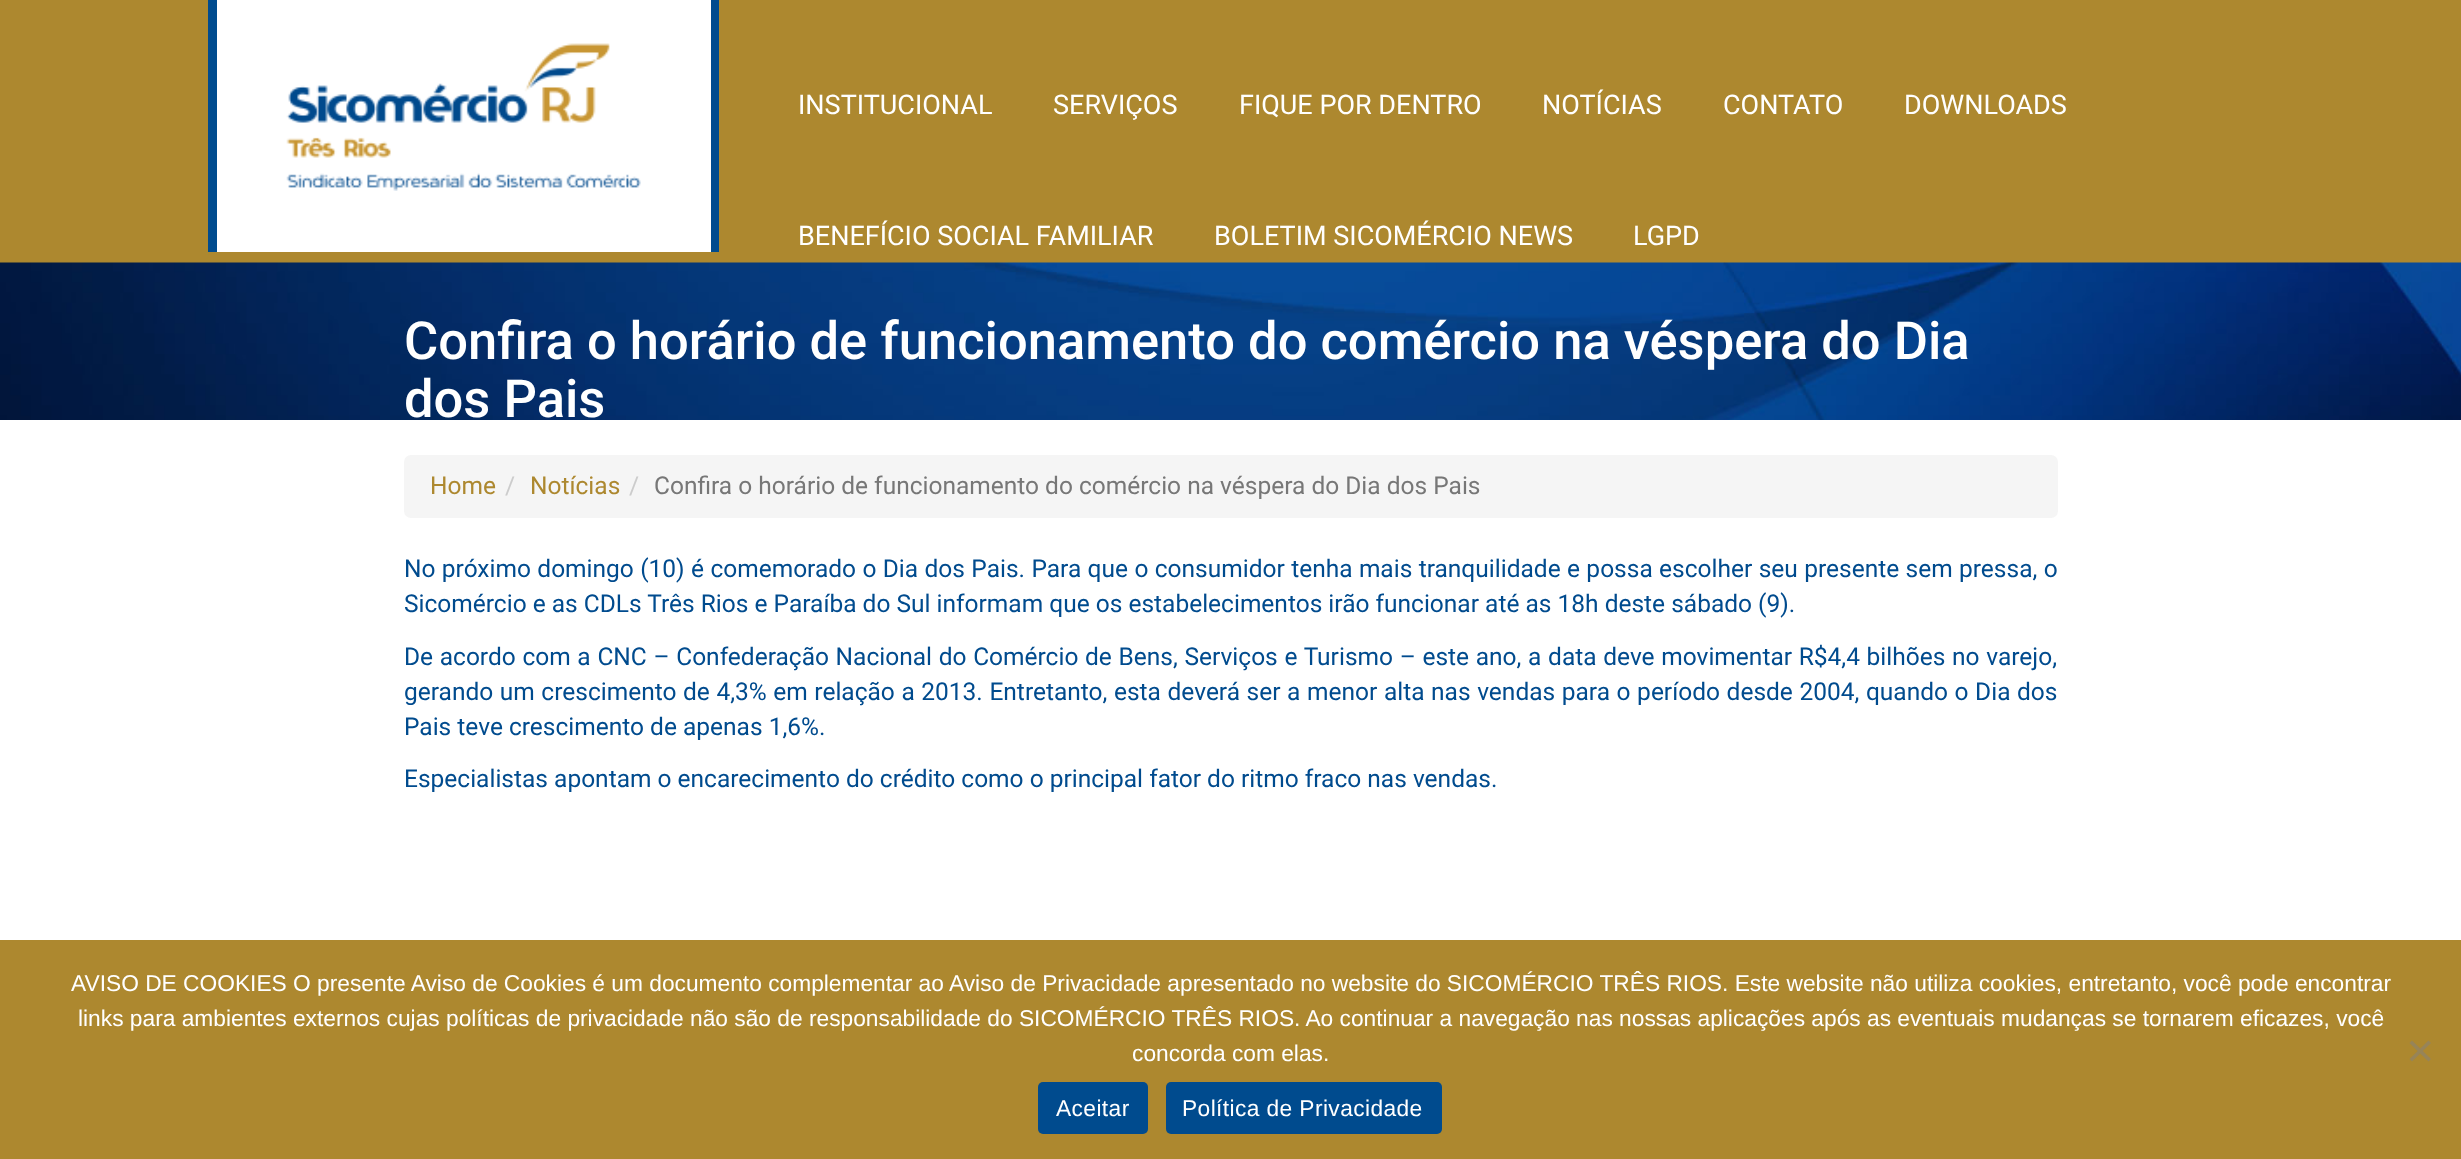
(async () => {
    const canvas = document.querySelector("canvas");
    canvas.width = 2461;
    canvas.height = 1159;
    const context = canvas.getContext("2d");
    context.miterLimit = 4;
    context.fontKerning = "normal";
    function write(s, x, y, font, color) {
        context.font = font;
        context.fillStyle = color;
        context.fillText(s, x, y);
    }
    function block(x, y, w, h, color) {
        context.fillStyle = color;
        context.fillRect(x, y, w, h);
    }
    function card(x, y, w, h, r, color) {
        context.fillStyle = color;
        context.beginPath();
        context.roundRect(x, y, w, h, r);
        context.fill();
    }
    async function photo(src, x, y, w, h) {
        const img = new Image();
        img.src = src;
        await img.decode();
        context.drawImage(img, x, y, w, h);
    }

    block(0, 0, 2461, 1159, "rgb(255, 255, 255)");
    block(0, 0, 2461, 263, "rgb(173, 136, 47)");
    block(217, 0, 494, 252, "rgb(255, 255, 255)");
    block(711, 0, 8, 252, "rgb(0, 75, 142)");
    block(208, 0, 9, 252, "rgb(0, 75, 142)");
    await photo("media/1.png", 286, 43, 355, 148);
    write("INSTITUCIONAL", 798, 114, "27px Roboto", "rgb(255, 255, 255)");
    write("SERVIÇOS", 1053, 114, "27px Roboto", "rgb(255, 255, 255)");
    write("FIQUE POR DENTRO", 1239, 114, "27px Roboto", "rgb(255, 255, 255)");
    write("NOTÍCIAS", 1542, 114, "27px Roboto", "rgb(255, 255, 255)");
    write("CONTATO", 1723, 114, "27px Roboto", "rgb(255, 255, 255)");
    write("DOWNLOADS", 1904, 114, "27px Roboto", "rgb(255, 255, 255)");
    write("BENEFÍCIO SOCIAL FAMILIAR", 798, 245, "27px Roboto", "rgb(255, 255, 255)");
    write("BOLETIM SICOMÉRCIO NEWS", 1214, 245, "27px Roboto", "rgb(255, 255, 255)");
    write("LGPD", 1633, 245, "27px Roboto", "rgb(255, 255, 255)");
    await photo("media/2.png", 0, 262, 2461, 158);
    write("Confira o horário de funcionamento do comércio na véspera do Dia", 404, 359, "500 52.5px Roboto", "rgb(255, 255, 255)");
    write("dos Pais", 404, 417, "500 52.5px Roboto", "rgb(255, 255, 255)");
    card(404, 455, 1654, 63, 7, "rgb(245, 245, 245)");
    write("Home", 430, 494, "24.5px Roboto", "rgb(173, 136, 47)");
    write("/", 505, 494, "24.5px Roboto", "rgb(204, 204, 204)");
    write("Notícias", 530, 494, "24.5px Roboto", "rgb(173, 136, 47)");
    write("/", 629, 494, "24.5px Roboto", "rgb(204, 204, 204)");
    write("Confira o horário de funcionamento do comércio na véspera do Dia dos Pais", 654, 494, "24.5px Roboto", "rgb(119, 119, 119)");
    context.wordSpacing = "0.3px";
    write("No próximo domingo (10) é comemorado o Dia dos Pais. Para que o consumidor tenha mais tranquilidade e possa escolher seu presente sem pressa, o", 404, 577, "24.5px Roboto", "rgb(0, 75, 142)");
    context.wordSpacing = "0px";
    write("Sicomércio e as CDLs Três Rios e Paraíba do Sul informam que os estabelecimentos irão funcionar até as 18h deste sábado (9).", 404, 612, "24.5px Roboto", "rgb(0, 75, 142)");
    context.wordSpacing = "0.6px";
    write("De acordo com a CNC – Confederação Nacional do Comércio de Bens, Serviços e Turismo – este ano, a data deve movimentar R$4,4 bilhões no varejo,", 404, 665, "24.5px Roboto", "rgb(0, 75, 142)");
    context.wordSpacing = "0.5px";
    write("gerando um crescimento de 4,3% em relação a 2013. Entretanto, esta deverá ser a menor alta nas vendas para o período desde 2004, quando o Dia dos", 404, 700, "24.5px Roboto", "rgb(0, 75, 142)");
    context.wordSpacing = "0px";
    write("Pais teve crescimento de apenas 1,6%.", 404, 735, "24.5px Roboto", "rgb(0, 75, 142)");
    write("Especialistas apontam o encarecimento do crédito como o principal fator do ritmo fraco nas vendas.", 404, 787, "24.5px Roboto", "rgb(0, 75, 142)");
    block(0, 940, 2461, 219, "rgb(173, 136, 47)");
    write("AVISO DE COOKIES O presente Aviso de Cookies é um documento complementar ao Aviso de Privacidade apresentado no website do SICOMÉRCIO TRÊS RIOS. Este website não utiliza cookies, entretanto, você pode encontrar", 71, 991, "22.75px Liberation Sans", "rgb(255, 255, 255)");
    write("links para ambientes externos cujas políticas de privacidade não são de responsabilidade do SICOMÉRCIO TRÊS RIOS. Ao continuar a navegação nas nossas aplicações após as eventuais mudanças se tornarem eficazes, você", 78, 1026, "22.75px Liberation Sans", "rgb(255, 255, 255)");
    write("concorda com elas.", 1132, 1061, "22.75px Liberation Sans", "rgb(255, 255, 255)");
    context.fillStyle = "rgb(151, 132, 88)";
    context.beginPath();
    context.moveTo(2428.5, 1040.5);
    context.lineTo(2431, 1043);
    context.lineTo(2412, 1061.5);
    context.lineTo(2409.5, 1059);
    context.closePath();
    context.fill();
    context.beginPath();
    context.moveTo(2409.5, 1043);
    context.lineTo(2412, 1040.5);
    context.lineTo(2431, 1059);
    context.lineTo(2428.5, 1061.5);
    context.closePath();
    context.fill();
    card(1038, 1082, 110, 52, 5, "rgb(0, 75, 142)");
    context.letterSpacing = "0.4px";
    write("Aceitar", 1056, 1116, "22.75px Liberation Sans", "rgb(255, 255, 255)");
    card(1166, 1082, 276, 52, 5, "rgb(0, 75, 142)");
    write("Política de Privacidade", 1182, 1116, "22.75px Liberation Sans", "rgb(255, 255, 255)");
})();
